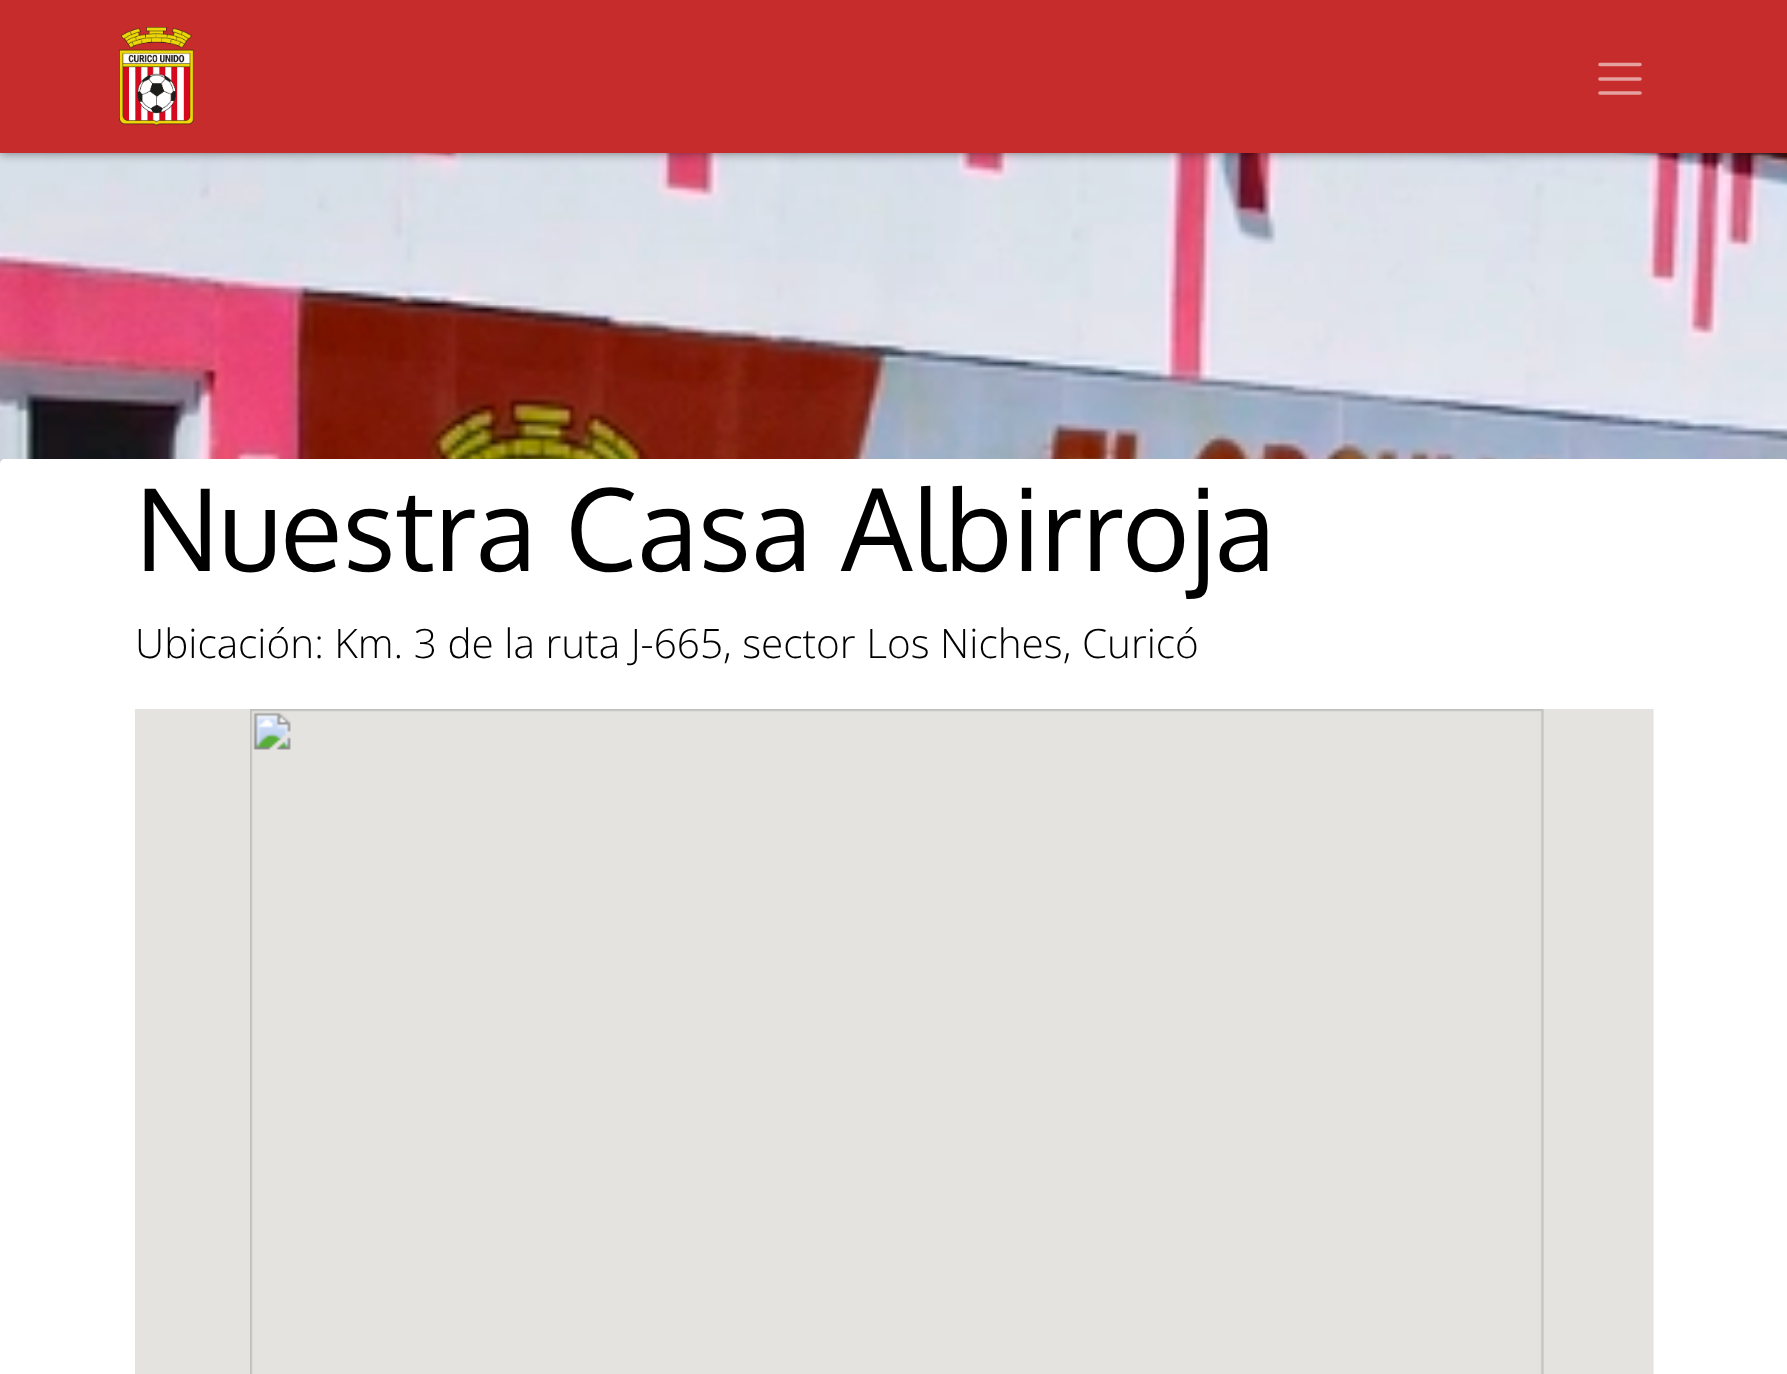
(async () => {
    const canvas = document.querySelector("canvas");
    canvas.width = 1787;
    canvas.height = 1374;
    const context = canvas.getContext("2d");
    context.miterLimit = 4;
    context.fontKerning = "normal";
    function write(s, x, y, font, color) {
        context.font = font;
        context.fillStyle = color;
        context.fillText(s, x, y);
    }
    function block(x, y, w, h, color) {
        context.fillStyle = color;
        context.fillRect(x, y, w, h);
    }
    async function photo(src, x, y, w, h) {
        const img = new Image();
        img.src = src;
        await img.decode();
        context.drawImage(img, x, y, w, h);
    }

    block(0, 0, 1787, 1374, "rgb(255, 255, 255)");
    await photo("media/2.png", 0, 153, 1787, 311);
    context.fillStyle = "rgba(0, 0, 0, 0.49)";
    context.filter = "blur(5.5px)";
    context.beginPath();
    context.rect(0, 0, 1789, 153);
    context.fill();
    context.filter = "none";
    block(0, 0, 1787, 153, "rgb(197, 44, 43)");
    await photo("media/1.png", 119, 27, 75, 99);
    context.beginPath();
    context.moveTo(1600, 64.5);
    context.lineTo(1640, 64.5);
    context.moveTo(1600, 79);
    context.lineTo(1640, 79);
    context.moveTo(1600, 93);
    context.lineTo(1640, 93);
    context.strokeStyle = "rgb(229, 160, 160)";
    context.lineWidth = 3.6;
    context.lineCap = "round";
    context.stroke();
    context.fillStyle = "rgb(255, 255, 255)";
    context.beginPath();
    context.moveTo(5, 459);
    context.lineTo(1784, 459);
    context.bezierCurveTo(1787, 459, 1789, 461, 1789, 464);
    context.lineTo(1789, 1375);
    context.lineTo(0, 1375);
    context.lineTo(0, 464);
    context.bezierCurveTo(0, 461, 2, 459, 5, 459);
    context.closePath();
    context.fill();
    write("Nuestra Casa Albirroja", 135, 571, "114px Oxygen", "rgb(0, 0, 0)");
    write("Ubicación: Km. 3 de la ruta J-665, sector Los Niches, Curicó", 135, 658, "300 40.5px Open Sans", "rgb(0, 0, 0)");
    await photo("media/3.png", 135, 709, 1519, 665);
})();
